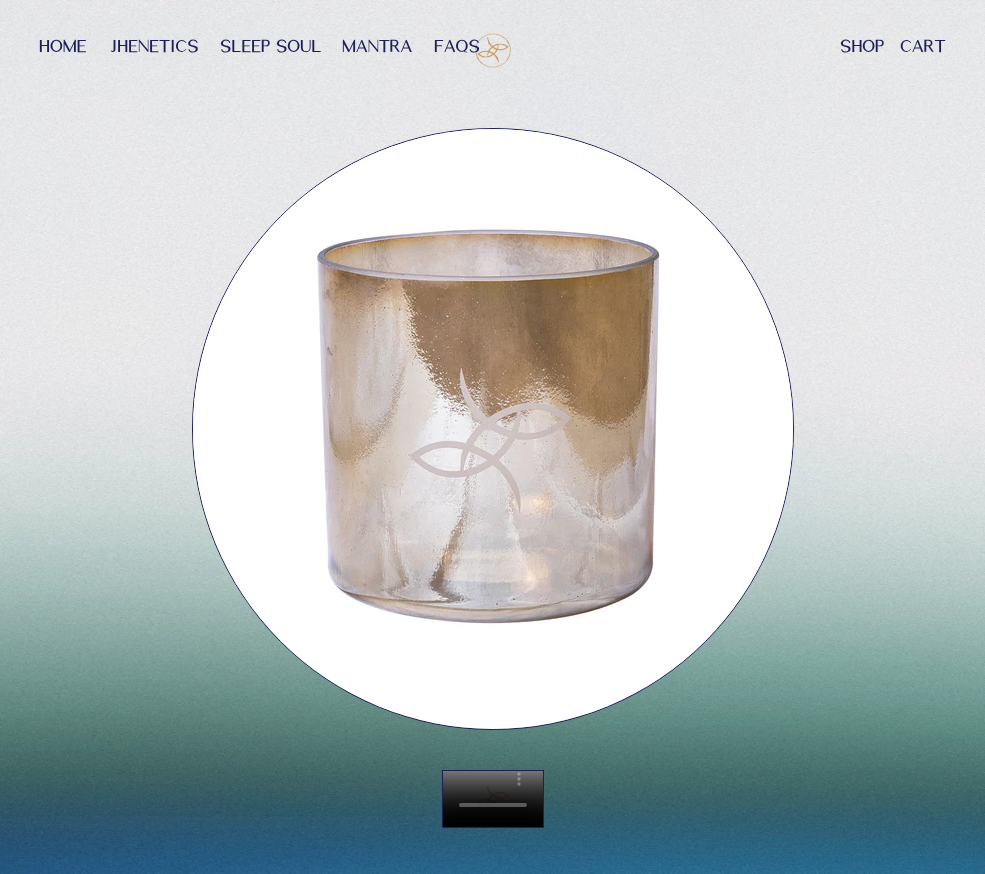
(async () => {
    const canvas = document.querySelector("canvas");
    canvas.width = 985;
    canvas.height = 874;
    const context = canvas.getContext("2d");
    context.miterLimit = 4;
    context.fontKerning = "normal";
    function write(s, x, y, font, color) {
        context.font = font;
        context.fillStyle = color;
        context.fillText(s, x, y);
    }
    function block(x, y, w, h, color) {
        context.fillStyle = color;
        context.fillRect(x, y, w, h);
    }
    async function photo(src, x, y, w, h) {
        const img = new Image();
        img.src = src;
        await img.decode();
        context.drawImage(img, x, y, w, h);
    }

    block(0, 0, 985, 874, "rgb(255, 255, 255)");
    await photo("media/1.png", 0, 0, 985, 874);
    context.beginPath();
    context.arc(493, 429, 300.5, 0, Math.PI * 2);
    context.strokeStyle = "rgb(30, 31, 88)";
    context.stroke();
    await photo("media/2.png", 193, 129, 600, 600);
    context.strokeRect(442.5, 770.5, 101, 57);
    await photo("media/3.png", 443, 771, 100, 56);
    await photo("media/4.png", 475, 33, 36, 35);
    write("Home", 39, 52, "17.5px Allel", "rgb(30, 31, 88)");
    write("jhenetics", 109, 52, "17.5px Allel", "rgb(30, 31, 88)");
    write("Sleep Soul", 220, 52, "17.5px Allel", "rgb(30, 31, 88)");
    write("Mantra", 342, 52, "17.5px Allel", "rgb(30, 31, 88)");
    write("FAQs", 434, 52, "17.5px Allel", "rgb(30, 31, 88)");
    write("Shop", 840, 52, "17.5px Allel", "rgb(30, 31, 88)");
    write("Cart", 900, 52, "17.5px Allel", "rgb(30, 31, 88)");
})();
